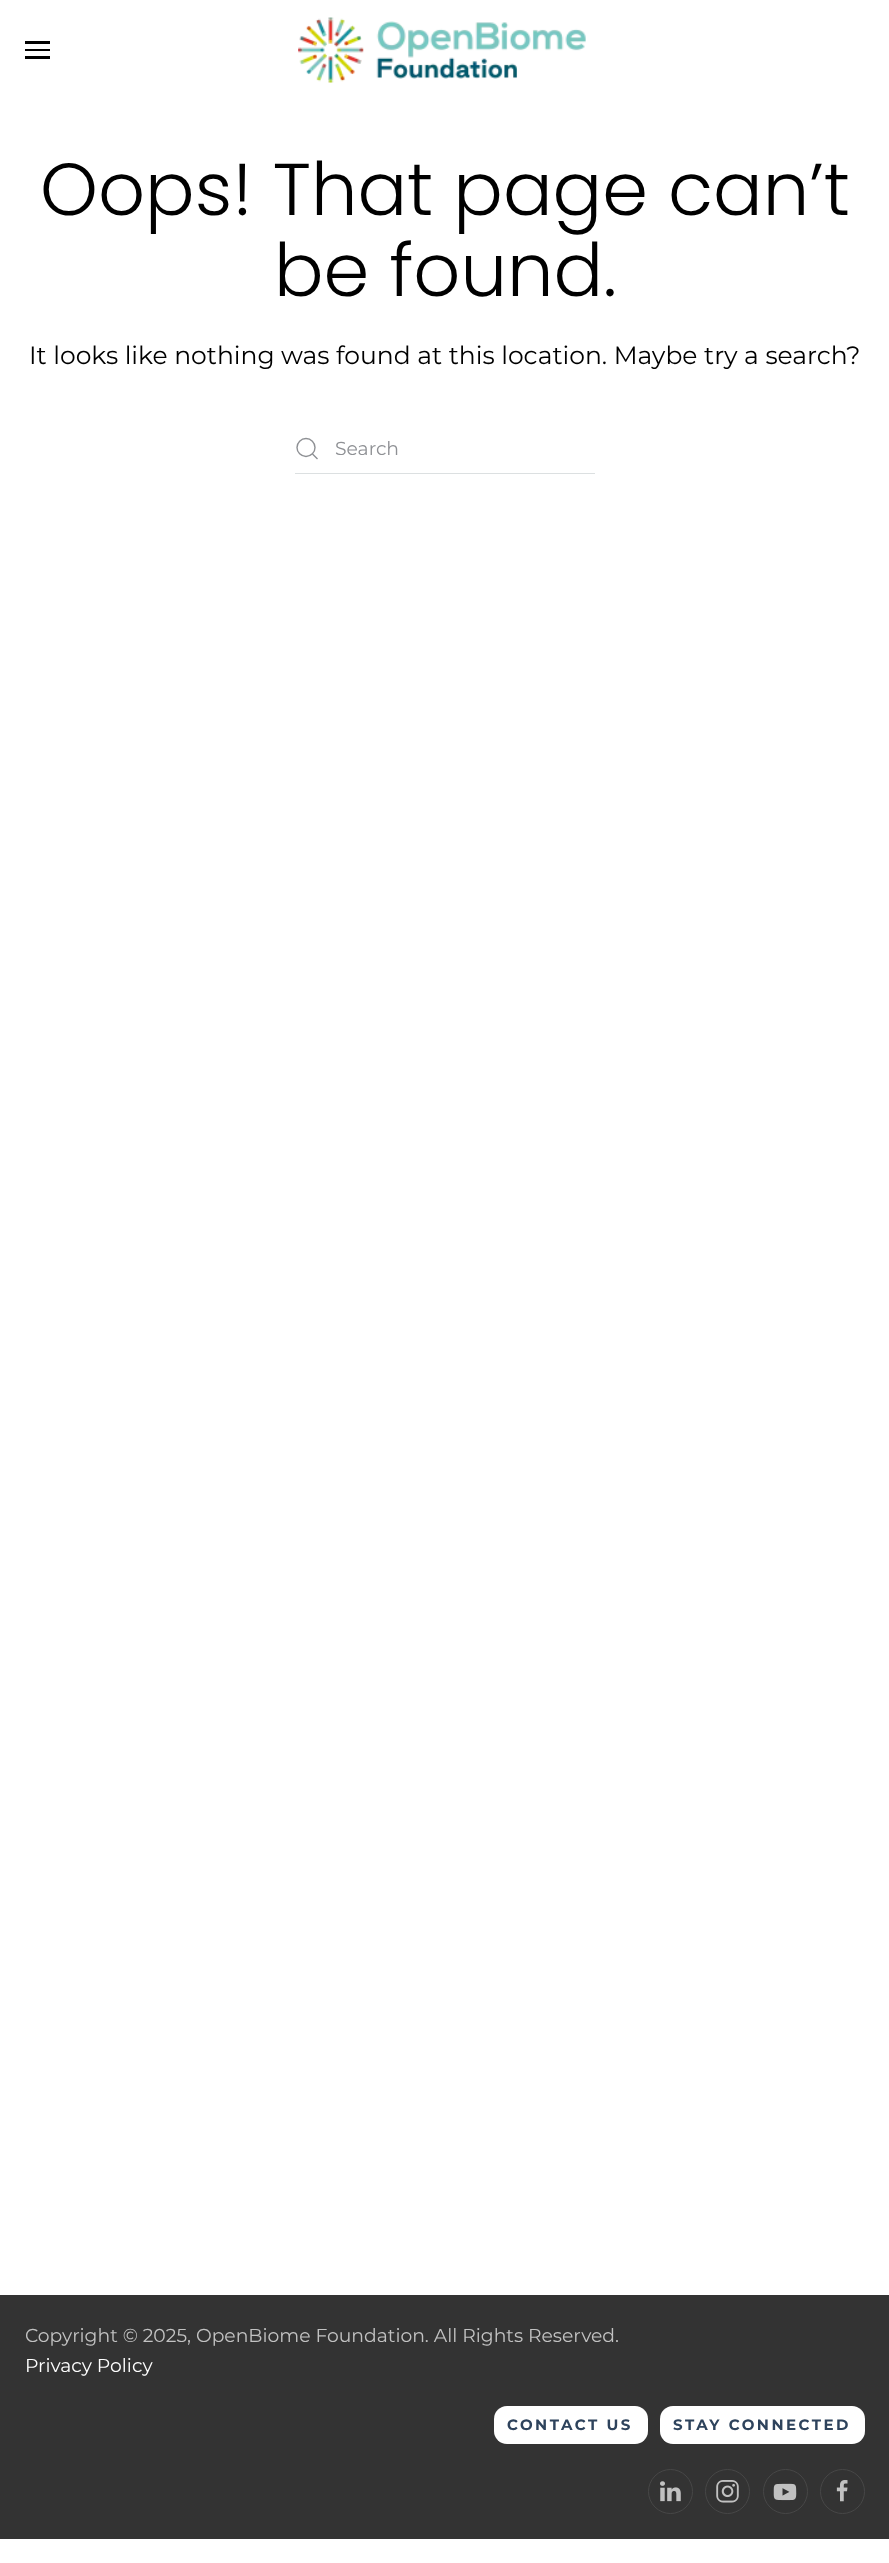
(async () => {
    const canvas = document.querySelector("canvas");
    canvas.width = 889;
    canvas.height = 2563;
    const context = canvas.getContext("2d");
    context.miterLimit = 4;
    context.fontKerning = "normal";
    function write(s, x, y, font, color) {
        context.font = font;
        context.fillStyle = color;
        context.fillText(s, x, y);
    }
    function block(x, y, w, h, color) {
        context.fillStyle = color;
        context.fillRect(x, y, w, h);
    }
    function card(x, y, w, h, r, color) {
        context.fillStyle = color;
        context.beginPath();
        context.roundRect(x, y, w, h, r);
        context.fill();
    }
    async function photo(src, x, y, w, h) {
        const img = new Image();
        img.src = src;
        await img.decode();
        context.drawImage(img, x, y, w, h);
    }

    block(0, 0, 889, 2563, "rgb(255, 255, 255)");
    block(25, 41, 25, 3, "rgb(0, 0, 0)");
    block(25, 49, 25, 2, "rgb(0, 0, 0)");
    block(25, 56, 25, 3, "rgb(0, 0, 0)");
    await photo("media/1.png", 298, 17, 288, 66);
    write("Oops! That page can’t", 40, 215, "300 73.5px Poppins", "rgb(0, 0, 0)");
    write("be found.", 274, 296, "300 73.5px Poppins", "rgb(0, 0, 0)");
    write("It looks like nothing was found at this location. Maybe try a search?", 29, 364, "100 25px Montserrat", "rgb(0, 0, 0)");
    context.beginPath();
    context.arc(306, 447.5, 9, 0, Math.PI * 2);
    context.strokeStyle = "rgb(142, 144, 148)";
    context.lineWidth = 1.4;
    context.stroke();
    context.beginPath();
    context.moveTo(312.5, 454);
    context.lineTo(317.5, 459);
    context.closePath();
    context.stroke();
    block(295, 473, 300, 1, "rgb(220, 224, 225)");
    write("Search", 335, 455, "100 18.75px Montserrat", "rgb(142, 144, 148)");
    block(0, 2295, 889, 244, "rgb(51, 51, 51)");
    write("Copyright © 2025, OpenBiome Foundation. All Rights Reserved.", 25, 2342, "100 18.75px Montserrat", "rgb(194, 194, 194)");
    write("Privacy Policy", 25, 2372, "100 18.75px Montserrat", "rgb(255, 255, 255)");
    card(494, 2406, 154, 38, 13, "rgb(255, 255, 255)");
    context.letterSpacing = "2.5px";
    write("CONTACT US", 507, 2430, "100 15px 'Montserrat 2'", "rgb(46, 67, 92)");
    card(660, 2406, 205, 38, 13, "rgb(255, 255, 255)");
    write("STAY CONNECTED", 673, 2430, "100 15px 'Montserrat 2'", "rgb(46, 67, 92)");
    context.beginPath();
    context.arc(670.5, 2491.5, 22, 0, Math.PI * 2);
    context.strokeStyle = "rgb(71, 71, 71)";
    context.lineWidth = 1;
    context.stroke();
    await photo("media/2.png", 660, 2481, 21, 21);
    context.beginPath();
    context.arc(727.5, 2491.5, 22, 0, Math.PI * 2);
    context.stroke();
    await photo("media/3.png", 716, 2480, 23, 23);
    context.beginPath();
    context.arc(785.5, 2491.5, 22, 0, Math.PI * 2);
    context.stroke();
    await photo("media/4.png", 773, 2483, 24, 18);
    context.beginPath();
    context.arc(842.5, 2491.5, 22, 0, Math.PI * 2);
    context.stroke();
    await photo("media/5.png", 836, 2480, 12, 22);
})();
